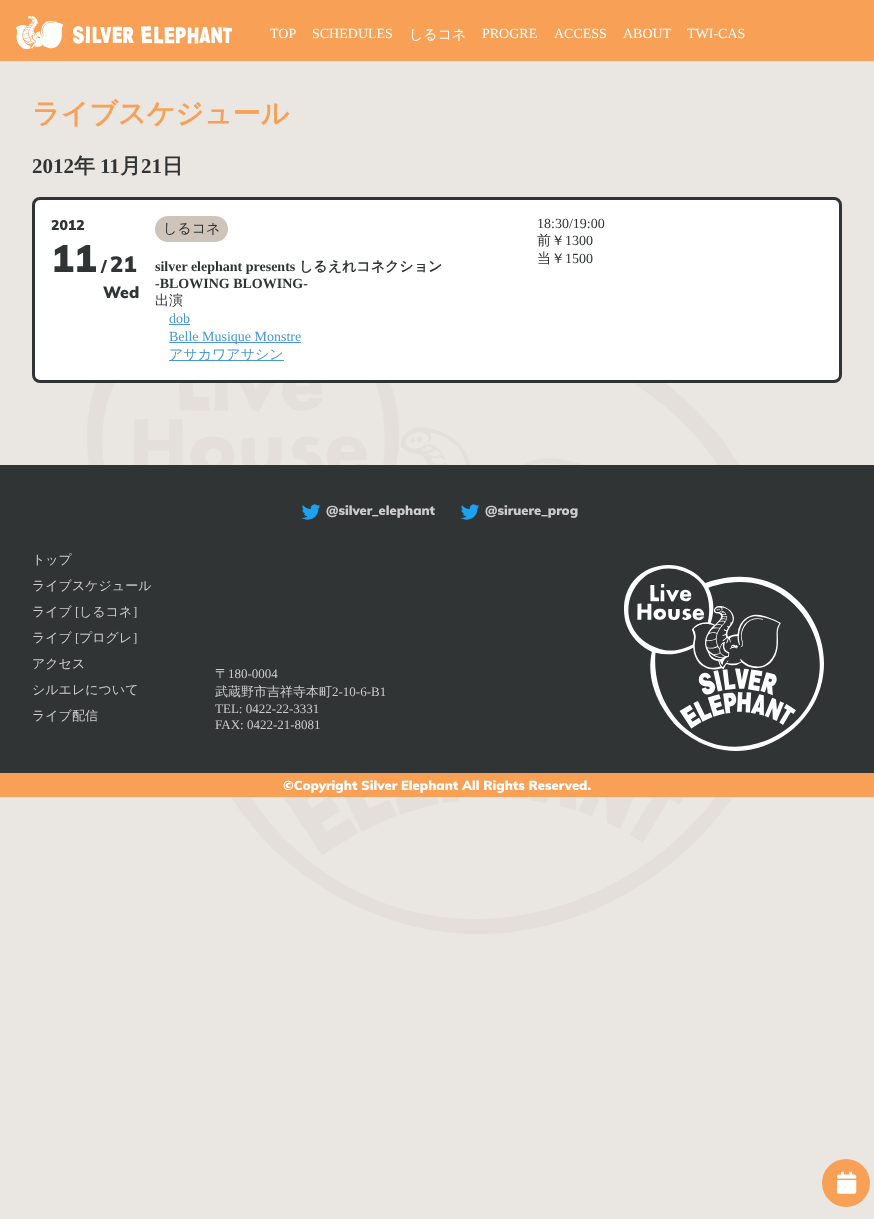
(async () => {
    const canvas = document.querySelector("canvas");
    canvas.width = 874;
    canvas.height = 1219;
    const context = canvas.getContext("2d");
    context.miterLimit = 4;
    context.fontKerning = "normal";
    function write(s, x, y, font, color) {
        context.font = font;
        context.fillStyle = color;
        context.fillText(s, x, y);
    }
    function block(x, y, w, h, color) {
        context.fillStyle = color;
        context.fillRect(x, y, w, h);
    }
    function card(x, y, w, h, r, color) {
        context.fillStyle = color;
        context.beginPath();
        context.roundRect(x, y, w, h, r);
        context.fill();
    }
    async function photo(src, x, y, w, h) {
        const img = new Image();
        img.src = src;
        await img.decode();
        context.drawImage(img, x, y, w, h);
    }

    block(0, 0, 874, 1219, "rgb(234, 230, 226)");
    await photo("media/1.png", 87, 383, 652, 551);
    block(0, 0, 874, 61, "rgb(248, 160, 85)");
    await photo("media/2.png", 16, 16, 217, 33);
    write("TOP", 270, 38, "14px Liberation Serif", "rgb(255, 255, 255)");
    write("SCHEDULES", 312, 38, "14px Liberation Serif", "rgb(255, 255, 255)");
    write("しるコネ", 409, 39, "500 14px WenQuanYi Zen Hei", "rgb(255, 255, 255)");
    write("PROGRE", 482, 38, "14px Liberation Serif", "rgb(255, 255, 255)");
    write("ACCESS", 554, 38, "14px Liberation Serif", "rgb(255, 255, 255)");
    write("ABOUT", 623, 38, "14px Liberation Serif", "rgb(255, 255, 255)");
    write("TWI-CAS", 687, 38, "14px Liberation Serif", "rgb(255, 255, 255)");
    write("ライブスケジュール", 32, 123, "bold 28px WenQuanYi Zen Hei", "rgb(248, 160, 85)");
    write("2012", 32, 173, "bold 21px Liberation Serif", "rgb(48, 52, 53)");
    write("年", 74, 173, "bold 21px WenQuanYi Zen Hei", "rgb(48, 52, 53)");
    write("11", 100, 173, "bold 21px Liberation Serif", "rgb(48, 52, 53)");
    write("月", 120, 173, "bold 21px WenQuanYi Zen Hei", "rgb(48, 52, 53)");
    write("21", 141, 173, "bold 21px Liberation Serif", "rgb(48, 52, 53)");
    write("日", 162, 173, "bold 21px WenQuanYi Zen Hei", "rgb(48, 52, 53)");
    context.fillStyle = "rgb(255, 255, 255)";
    context.beginPath();
    context.roundRect(33.5, 198.5, 807, 183, 6.5);
    context.fill();
    context.strokeStyle = "rgb(48, 52, 53)";
    context.lineWidth = 3;
    context.stroke();
    write("2012", 51, 230, "900 14px Muli", "rgb(48, 52, 53)");
    write("11", 51, 272, "900 38px Muli", "rgb(48, 52, 53)");
    write("/", 101, 272, "900 16px Muli", "rgb(48, 52, 53)");
    write("21", 110, 272, "900 22px Muli", "rgb(48, 52, 53)");
    write("Wed", 103, 298, "900 16px Muli", "rgb(48, 52, 53)");
    card(155, 216, 73, 26, 13, "rgb(206, 196, 186)");
    write("しるコネ", 163, 233, "500 14px WenQuanYi Zen Hei", "rgb(48, 52, 53)");
    write("silver elephant presents", 155, 271, "bold 14px Liberation Serif", "rgb(48, 52, 53)");
    write("しるえれコネクション", 299, 271, "bold 14px WenQuanYi Zen Hei", "rgb(48, 52, 53)");
    write("-BLOWING BLOWING-", 155, 288, "bold 14px Liberation Serif", "rgb(48, 52, 53)");
    write("出演", 155, 305, "500 14px WenQuanYi Zen Hei", "rgb(48, 52, 53)");
    write("dob", 169, 323, "14px Liberation Serif", "rgb(72, 151, 216)");
    block(169, 324, 21, 1, "rgb(72, 151, 216)");
    block(169, 342, 132, 1, "rgb(72, 151, 216)");
    write("Belle Musique Monstre", 169, 341, "14px Liberation Serif", "rgb(72, 151, 216)");
    block(169, 360, 115, 1, "rgb(72, 151, 216)");
    write("アサカワアサシン", 169, 359, "500 14px WenQuanYi Zen Hei", "rgb(72, 151, 216)");
    write("18:30/19:00", 537, 228, "14px Liberation Serif", "rgb(48, 52, 53)");
    write("前￥", 537, 245, "500 14px WenQuanYi Zen Hei", "rgb(48, 52, 53)");
    write("1300", 565, 245, "14px Liberation Serif", "rgb(48, 52, 53)");
    write("当￥", 537, 263, "500 14px WenQuanYi Zen Hei", "rgb(48, 52, 53)");
    write("1500", 565, 263, "14px Liberation Serif", "rgb(48, 52, 53)");
    context.fillStyle = "rgb(248, 160, 85)";
    context.beginPath();
    context.arc(846, 1183, 24, 0, Math.PI * 2);
    context.fill();
    await photo("media/3.png", 837, 1171, 20, 23);
    block(0, 465, 874, 308, "rgb(48, 52, 53)");
    await photo("media/4.png", 301, 504, 20, 16);
    write("@silver_elephant", 326, 515, "900 13px Muli", "rgb(204, 204, 204)");
    await photo("media/4.png", 460, 504, 20, 16);
    write("@siruere_prog", 485, 515, "900 13px Muli", "rgb(204, 204, 204)");
    await photo("media/5.png", 624, 565, 200, 186);
    write("トップ", 32, 564, "500 13px WenQuanYi Zen Hei", "rgb(204, 204, 204)");
    write("ライブスケジュール", 32, 590, "500 13px WenQuanYi Zen Hei", "rgb(204, 204, 204)");
    write("ライブ", 32, 616, "500 13px WenQuanYi Zen Hei", "rgb(204, 204, 204)");
    write("[", 75, 616, "13px Liberation Serif", "rgb(204, 204, 204)");
    write("しるコネ", 79, 616, "500 13px WenQuanYi Zen Hei", "rgb(204, 204, 204)");
    write("]", 133, 616, "13px Liberation Serif", "rgb(204, 204, 204)");
    write("ライブ", 32, 642, "500 13px WenQuanYi Zen Hei", "rgb(204, 204, 204)");
    write("[", 75, 642, "13px Liberation Serif", "rgb(204, 204, 204)");
    write("プログレ", 79, 642, "500 13px WenQuanYi Zen Hei", "rgb(204, 204, 204)");
    write("]", 133, 642, "13px Liberation Serif", "rgb(204, 204, 204)");
    write("アクセス", 32, 668, "500 13px WenQuanYi Zen Hei", "rgb(204, 204, 204)");
    write("シルエレについて", 32, 694, "500 13px WenQuanYi Zen Hei", "rgb(204, 204, 204)");
    write("ライブ配信", 32, 720, "500 13px WenQuanYi Zen Hei", "rgb(204, 204, 204)");
    write("〒", 215, 678, "500 13px WenQuanYi Zen Hei", "rgb(204, 204, 204)");
    write("180-0004", 228, 678, "13px Liberation Serif", "rgb(204, 204, 204)");
    write("武蔵野市吉祥寺本町", 215, 696, "500 13px WenQuanYi Zen Hei", "rgb(204, 204, 204)");
    write("2-10-6-B1", 332, 696, "13px Liberation Serif", "rgb(204, 204, 204)");
    write("TEL: 0422-22-3331", 215, 713, "13px Liberation Serif", "rgb(204, 204, 204)");
    write("FAX: 0422-21-8081", 215, 729, "13px Liberation Serif", "rgb(204, 204, 204)");
    block(0, 773, 874, 24, "rgb(248, 160, 85)");
    write("©Copyright Silver Elephant All Rights Reserved.", 283, 790, "900 13px Muli", "rgb(255, 255, 255)");
})();
